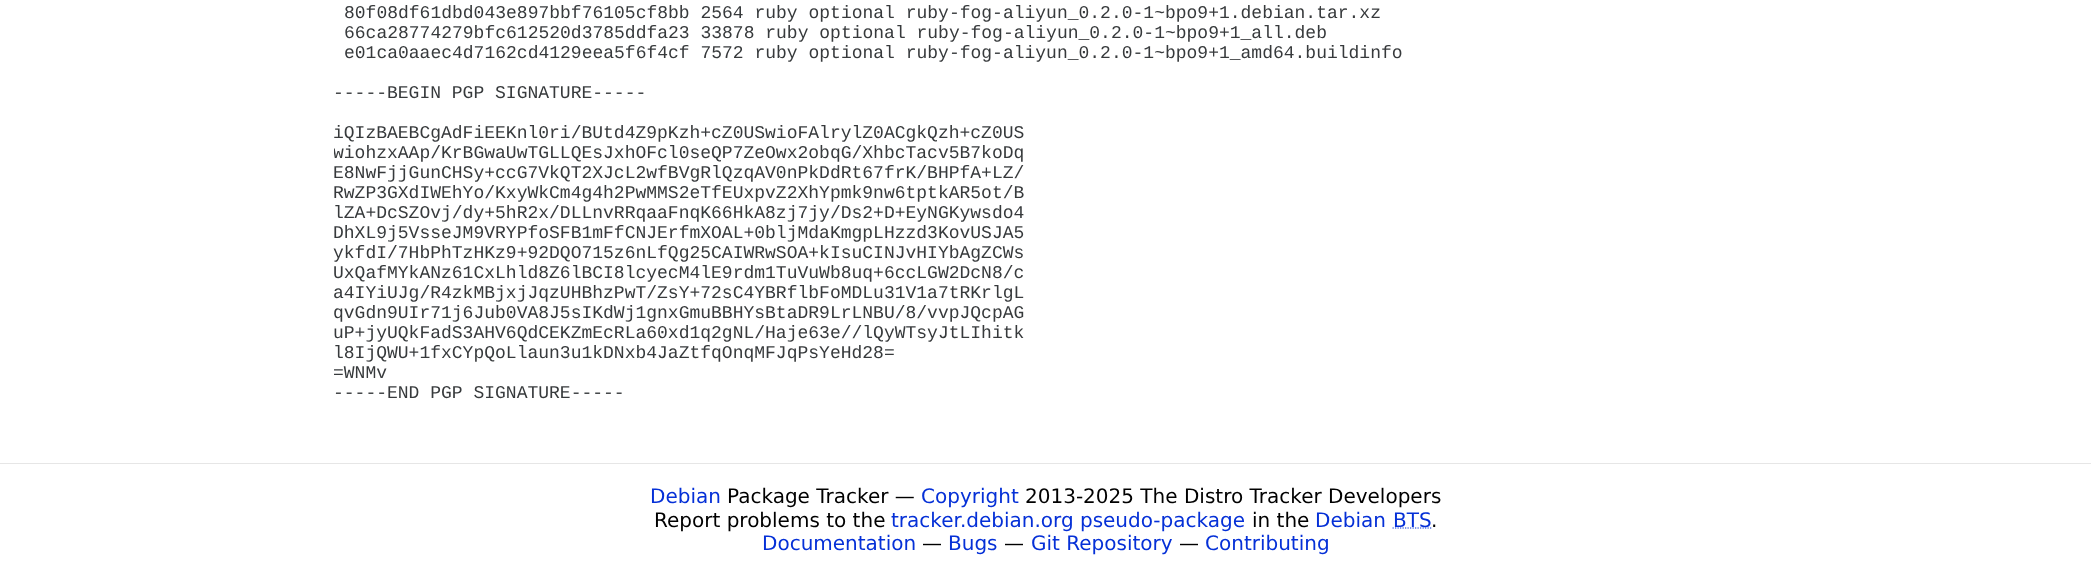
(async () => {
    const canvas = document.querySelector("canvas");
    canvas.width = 2091;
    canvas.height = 575;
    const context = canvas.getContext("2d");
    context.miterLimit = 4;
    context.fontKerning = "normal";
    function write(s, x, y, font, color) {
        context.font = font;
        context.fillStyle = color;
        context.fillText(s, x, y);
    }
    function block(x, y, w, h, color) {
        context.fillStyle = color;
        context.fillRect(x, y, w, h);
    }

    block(0, 0, 2091, 575, "rgb(255, 255, 255)");
    write("80f08df61dbd043e897bbf76105cf8bb 2564 ruby optional ruby-fog-aliyun_0.2.0-1~bpo9+1.debian.tar.xz", 344, 18, "18px Liberation Mono", "rgb(55, 58, 60)");
    write("66ca28774279bfc612520d3785ddfa23 33878 ruby optional ruby-fog-aliyun_0.2.0-1~bpo9+1_all.deb", 344, 38, "18px Liberation Mono", "rgb(55, 58, 60)");
    write("e01ca0aaec4d7162cd4129eea5f6f4cf 7572 ruby optional ruby-fog-aliyun_0.2.0-1~bpo9+1_amd64.buildinfo", 344, 58, "18px Liberation Mono", "rgb(55, 58, 60)");
    write("-----BEGIN PGP SIGNATURE-----", 333, 98, "18px Liberation Mono", "rgb(55, 58, 60)");
    write("iQIzBAEBCgAdFiEEKnl0ri/BUtd4Z9pKzh+cZ0USwioFAlrylZ0ACgkQzh+cZ0US", 333, 138, "18px Liberation Mono", "rgb(55, 58, 60)");
    context.save();
    context.beginPath();
    context.rect(334, 0, 1425, 423);
    context.clip();
    write("wiohzxAAp/KrBGwaUwTGLLQEsJxhOFcl0seQP7ZeOwx2obqG/XhbcTacv5B7koDq", 333, 158, "18px Liberation Mono", "rgb(55, 58, 60)");
    context.restore();
    write("E8NwFjjGunCHSy+ccG7VkQT2XJcL2wfBVgRlQzqAV0nPkDdRt67frK/BHPfA+LZ/", 333, 178, "18px Liberation Mono", "rgb(55, 58, 60)");
    write("RwZP3GXdIWEhYo/KxyWkCm4g4h2PwMMS2eTfEUxpvZ2XhYpmk9nw6tptkAR5ot/B", 333, 198, "18px Liberation Mono", "rgb(55, 58, 60)");
    write("lZA+DcSZOvj/dy+5hR2x/DLLnvRRqaaFnqK66HkA8zj7jy/Ds2+D+EyNGKywsdo4", 333, 218, "18px Liberation Mono", "rgb(55, 58, 60)");
    write("DhXL9j5VsseJM9VRYPfoSFB1mFfCNJErfmXOAL+0bljMdaKmgpLHzzd3KovUSJA5", 333, 238, "18px Liberation Mono", "rgb(55, 58, 60)");
    write("ykfdI/7HbPhTzHKz9+92DQO715z6nLfQg25CAIWRwSOA+kIsuCINJvHIYbAgZCWs", 333, 258, "18px Liberation Mono", "rgb(55, 58, 60)");
    write("UxQafMYkANz61CxLhld8Z6lBCI8lcyecM4lE9rdm1TuVuWb8uq+6ccLGW2DcN8/c", 333, 278, "18px Liberation Mono", "rgb(55, 58, 60)");
    write("a4IYiUJg/R4zkMBjxjJqzUHBhzPwT/ZsY+72sC4YBRflbFoMDLu31V1a7tRKrlgL", 333, 298, "18px Liberation Mono", "rgb(55, 58, 60)");
    write("qvGdn9UIr71j6Jub0VA8J5sIKdWj1gnxGmuBBHYsBtaDR9LrLNBU/8/vvpJQcpAG", 333, 318, "18px Liberation Mono", "rgb(55, 58, 60)");
    write("uP+jyUQkFadS3AHV6QdCEKZmEcRLa60xd1q2gNL/Haje63e//lQyWTsyJtLIhitk", 333, 338, "18px Liberation Mono", "rgb(55, 58, 60)");
    write("l8IjQWU+1fxCYpQoLlaun3u1kDNxb4JaZtfqOnqMFJqPsYeHd28=", 333, 358, "18px Liberation Mono", "rgb(55, 58, 60)");
    write("=WNMv", 333, 378, "18px Liberation Mono", "rgb(55, 58, 60)");
    write("-----END PGP SIGNATURE-----", 333, 398, "18px Liberation Mono", "rgb(55, 58, 60)");
    block(0, 463, 2091, 1, "rgb(230, 230, 230)");
    write("Debian", 650, 503, "20px DejaVu Sans", "rgb(5, 48, 215)");
    write("Package Tracker —", 727, 503, "20px DejaVu Sans", "rgb(0, 0, 0)");
    write("Copyright", 921, 503, "20px DejaVu Sans", "rgb(5, 48, 215)");
    write("2013-2025 The Distro Tracker Developers", 1025, 503, "20px DejaVu Sans", "rgb(0, 0, 0)");
    write("Report problems to the", 654, 527, "20px DejaVu Sans", "rgb(0, 0, 0)");
    write("tracker.debian.org pseudo-package", 891, 527, "20px DejaVu Sans", "rgb(5, 48, 215)");
    write("in the", 1252, 527, "20px DejaVu Sans", "rgb(0, 0, 0)");
    write("Debian", 1315, 527, "20px DejaVu Sans", "rgb(5, 48, 215)");
    context.beginPath();
    context.moveTo(1392.5, 528);
    context.lineTo(1431.5, 528);
    context.strokeStyle = "rgb(5, 48, 215)";
    context.lineWidth = 1.2;
    context.setLineDash([1.25, 1.25]);
    context.stroke();
    write("BTS", 1393, 527, "20px DejaVu Sans", "rgb(5, 48, 215)");
    write(".", 1431, 527, "20px DejaVu Sans", "rgb(0, 0, 0)");
    write("Documentation", 762, 550, "20px DejaVu Sans", "rgb(5, 48, 215)");
    write("—", 922, 550, "20px DejaVu Sans", "rgb(0, 0, 0)");
    write("Bugs", 948, 550, "20px DejaVu Sans", "rgb(5, 48, 215)");
    write("—", 1004, 550, "20px DejaVu Sans", "rgb(0, 0, 0)");
    write("Git Repository", 1031, 550, "20px DejaVu Sans", "rgb(5, 48, 215)");
    write("—", 1179, 550, "20px DejaVu Sans", "rgb(0, 0, 0)");
    write("Contributing", 1205, 550, "20px DejaVu Sans", "rgb(5, 48, 215)");
})();
